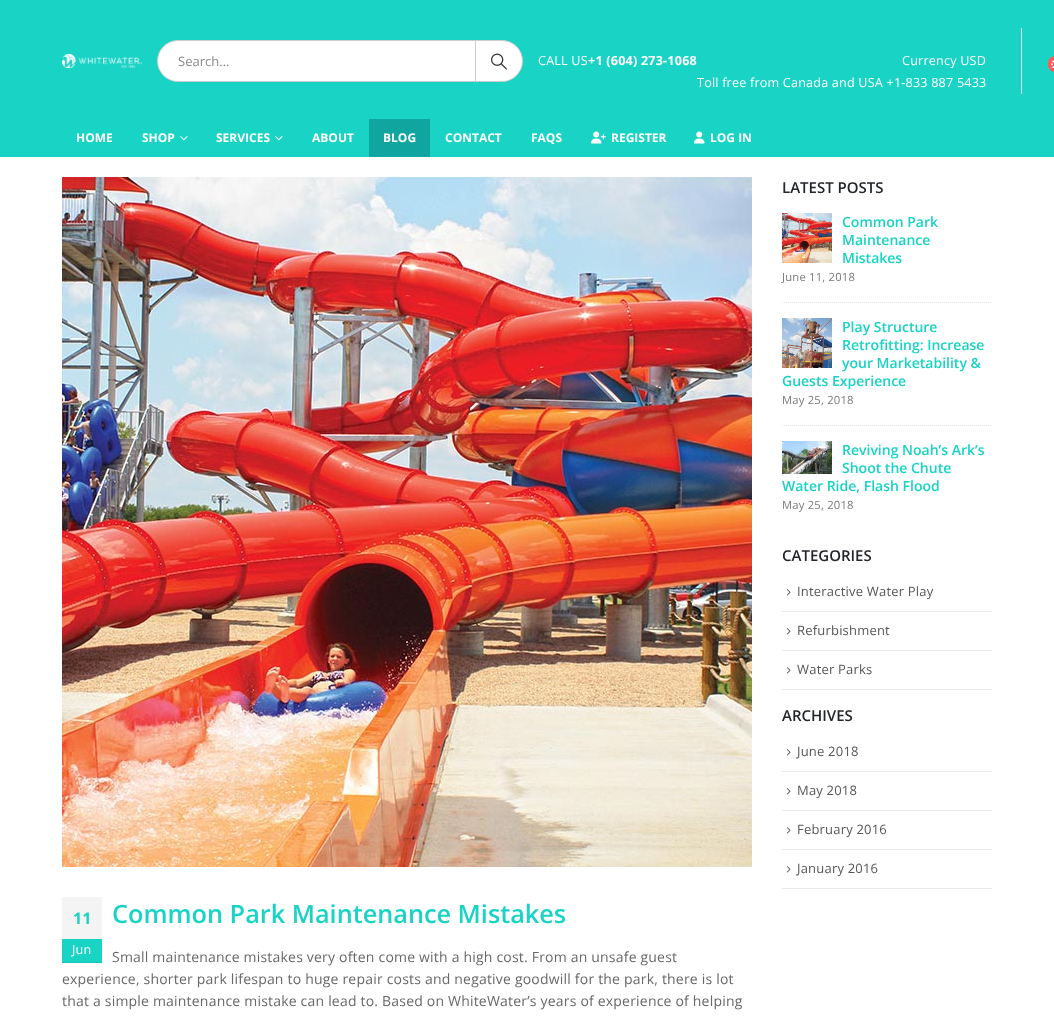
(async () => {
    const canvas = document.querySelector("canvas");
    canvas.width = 1054;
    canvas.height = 1019;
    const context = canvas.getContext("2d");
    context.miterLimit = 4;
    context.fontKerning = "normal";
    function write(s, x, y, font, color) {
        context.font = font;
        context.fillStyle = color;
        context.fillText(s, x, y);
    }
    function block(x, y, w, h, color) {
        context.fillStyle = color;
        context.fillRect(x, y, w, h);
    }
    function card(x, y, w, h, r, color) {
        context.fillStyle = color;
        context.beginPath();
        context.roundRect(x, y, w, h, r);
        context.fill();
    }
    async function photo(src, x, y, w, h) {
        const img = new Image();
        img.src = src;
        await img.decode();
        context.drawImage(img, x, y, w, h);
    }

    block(0, 0, 1054, 1019, "rgb(255, 255, 255)");
    block(0, 0, 1054, 157, "rgb(25, 211, 197)");
    await photo("media/1.png", 62, 54, 80, 14);
    context.fillStyle = "rgb(255, 255, 255)";
    context.beginPath();
    context.roundRect(157.5, 40.5, 365, 41, 20.5);
    context.fill();
    context.strokeStyle = "rgb(204, 204, 204)";
    context.stroke();
    block(475, 41, 1, 40, "rgb(204, 204, 204)");
    write("Search…", 178, 66, "13px Open Sans", "rgb(136, 136, 136)");
    await photo("media/2.png", 491, 53, 16, 17);
    block(1021, 28, 1, 66, "rgb(221, 224, 226)");
    context.letterSpacing = "0.2px";
    write("CALL US", 538, 65, "12.6px Open Sans", "rgb(255, 255, 255)");
    write("+1 (604) 273-1068", 588, 65, "bold 12.6px Open Sans", "rgb(255, 255, 255)");
    write("Currency USD", 902, 65, "12.6px Open Sans", "rgb(255, 255, 255)");
    write("Toll free from Canada and USA +1-833 887 5433", 697, 87, "12.6px Open Sans", "rgb(255, 255, 255)");
    card(1048, 56, 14, 16, 8, "rgb(255, 91, 91)");
    await photo("media/3.png", 1051, 60, 3, 8);
    context.letterSpacing = "0px";
    write("HOME", 76, 142, "bold 12px Open Sans", "rgb(255, 255, 255)");
    write("SHOP", 142, 142, "bold 12px Open Sans", "rgb(255, 255, 255)");
    await photo("media/4.png", 180, 136, 8, 5);
    write("SERVICES", 216, 142, "bold 12px Open Sans", "rgb(255, 255, 255)");
    await photo("media/4.png", 275, 136, 8, 5);
    write("ABOUT", 312, 142, "bold 12px Open Sans", "rgb(255, 255, 255)");
    block(369, 119, 61, 38, "rgb(16, 165, 158)");
    write("BLOG", 383, 142, "bold 12px Open Sans", "rgb(255, 255, 255)");
    write("CONTACT", 445, 142, "bold 12px Open Sans", "rgb(255, 255, 255)");
    write("FAQS", 531, 142, "bold 12px Open Sans", "rgb(255, 255, 255)");
    await photo("media/5.png", 591, 131, 15, 13);
    write("REGISTER", 611, 142, "bold 12px Open Sans", "rgb(255, 255, 255)");
    await photo("media/6.png", 694, 131, 11, 13);
    write("LOG IN", 710, 142, "bold 12px Open Sans", "rgb(255, 255, 255)");
    write("LATEST POSTS", 782, 193, "600 15px Open Sans", "rgb(34, 37, 41)");
    await photo("media/7.png", 782, 213, 50, 50);
    write("Common Park", 842, 227, "600 14px Open Sans", "rgb(25, 211, 197)");
    write("Maintenance", 842, 245, "600 14px Open Sans", "rgb(25, 211, 197)");
    write("Mistakes", 842, 263, "600 14px Open Sans", "rgb(25, 211, 197)");
    context.letterSpacing = "0.2px";
    write("June 11, 2018", 782, 281, "11.25px Open Sans", "rgb(122, 122, 122)");
    context.beginPath();
    context.moveTo(782, 302.5);
    context.lineTo(992, 302.5);
    context.strokeStyle = "rgb(231, 231, 231)";
    context.setLineDash([1, 1]);
    context.stroke();
    await photo("media/8.png", 782, 318, 50, 50);
    context.letterSpacing = "0px";
    write("Play Structure", 842, 332, "600 14px Open Sans", "rgb(25, 211, 197)");
    write("Retrofitting: Increase", 842, 350, "600 14px Open Sans", "rgb(25, 211, 197)");
    write("your Marketability &", 842, 368, "600 14px Open Sans", "rgb(25, 211, 197)");
    write("Guests Experience", 782, 386, "600 14px Open Sans", "rgb(25, 211, 197)");
    context.letterSpacing = "0.2px";
    write("May 25, 2018", 782, 404, "11.25px Open Sans", "rgb(122, 122, 122)");
    context.beginPath();
    context.moveTo(782, 425.5);
    context.lineTo(992, 425.5);
    context.stroke();
    await photo("media/9.png", 782, 441, 50, 33);
    context.letterSpacing = "0px";
    write("Reviving Noah’s Ark’s", 842, 455, "600 14px Open Sans", "rgb(25, 211, 197)");
    write("Shoot the Chute", 842, 473, "600 14px Open Sans", "rgb(25, 211, 197)");
    write("Water Ride, Flash Flood", 782, 491, "600 14px Open Sans", "rgb(25, 211, 197)");
    context.letterSpacing = "0.2px";
    write("May 25, 2018", 782, 509, "11.25px Open Sans", "rgb(122, 122, 122)");
    context.letterSpacing = "0px";
    write("CATEGORIES", 782, 561, "600 15px Open Sans", "rgb(34, 37, 41)");
    block(782, 689, 210, 1, "rgb(235, 235, 235)");
    await photo("media/10.png", 786, 589, 5, 7);
    context.letterSpacing = "0.2px";
    write("Interactive Water Play", 797, 596, "13px Open Sans", "rgb(87, 87, 87)");
    block(782, 611, 210, 1, "rgb(235, 235, 235)");
    await photo("media/10.png", 786, 628, 5, 7);
    write("Refurbishment", 797, 635, "13px Open Sans", "rgb(87, 87, 87)");
    block(782, 650, 210, 1, "rgb(235, 235, 235)");
    await photo("media/10.png", 786, 667, 5, 7);
    write("Water Parks", 797, 674, "13px Open Sans", "rgb(87, 87, 87)");
    context.letterSpacing = "0px";
    write("ARCHIVES", 782, 721, "600 15px Open Sans", "rgb(34, 37, 41)");
    block(782, 888, 210, 1, "rgb(235, 235, 235)");
    await photo("media/10.png", 786, 749, 5, 7);
    context.letterSpacing = "0.2px";
    write("June 2018", 797, 756, "13px Open Sans", "rgb(87, 87, 87)");
    block(782, 771, 210, 1, "rgb(235, 235, 235)");
    await photo("media/10.png", 786, 788, 5, 7);
    write("May 2018", 797, 795, "13px Open Sans", "rgb(87, 87, 87)");
    block(782, 810, 210, 1, "rgb(235, 235, 235)");
    await photo("media/10.png", 786, 827, 5, 7);
    write("February 2016", 797, 834, "13px Open Sans", "rgb(87, 87, 87)");
    block(782, 849, 210, 1, "rgb(235, 235, 235)");
    await photo("media/10.png", 786, 866, 5, 7);
    write("January 2016", 797, 873, "13px Open Sans", "rgb(87, 87, 87)");
    await photo("media/11.png", 62, 177, 690, 690);
    context.letterSpacing = "0px";
    write("Common Park Maintenance Mistakes", 112, 923, "600 25.25px Open Sans", "rgb(25, 211, 197)");
    context.letterSpacing = "0.2px";
    write("Small maintenance mistakes very often come with a high cost. From an unsafe guest", 112, 962, "14px Open Sans", "rgb(104, 104, 104)");
    write("experience, shorter park lifespan to huge repair costs and negative goodwill for the park, there is lot", 62, 984, "14px Open Sans", "rgb(104, 104, 104)");
    write("that a simple maintenance mistake can lead to. Based on WhiteWater’s years of experience of helping", 62, 1006, "14px Open Sans", "rgb(104, 104, 104)");
    block(62, 897, 40, 42, "rgb(244, 244, 244)");
    write("11", 73, 924, "bold 16px Open Sans", "rgb(25, 211, 197)");
    block(62, 939, 40, 23, "rgb(25, 211, 197)");
    block(62, 962, 40, 1, "rgb(23, 196, 183)");
    write("Jun", 72, 954, "12.6px Open Sans", "rgb(255, 255, 255)");
})();
